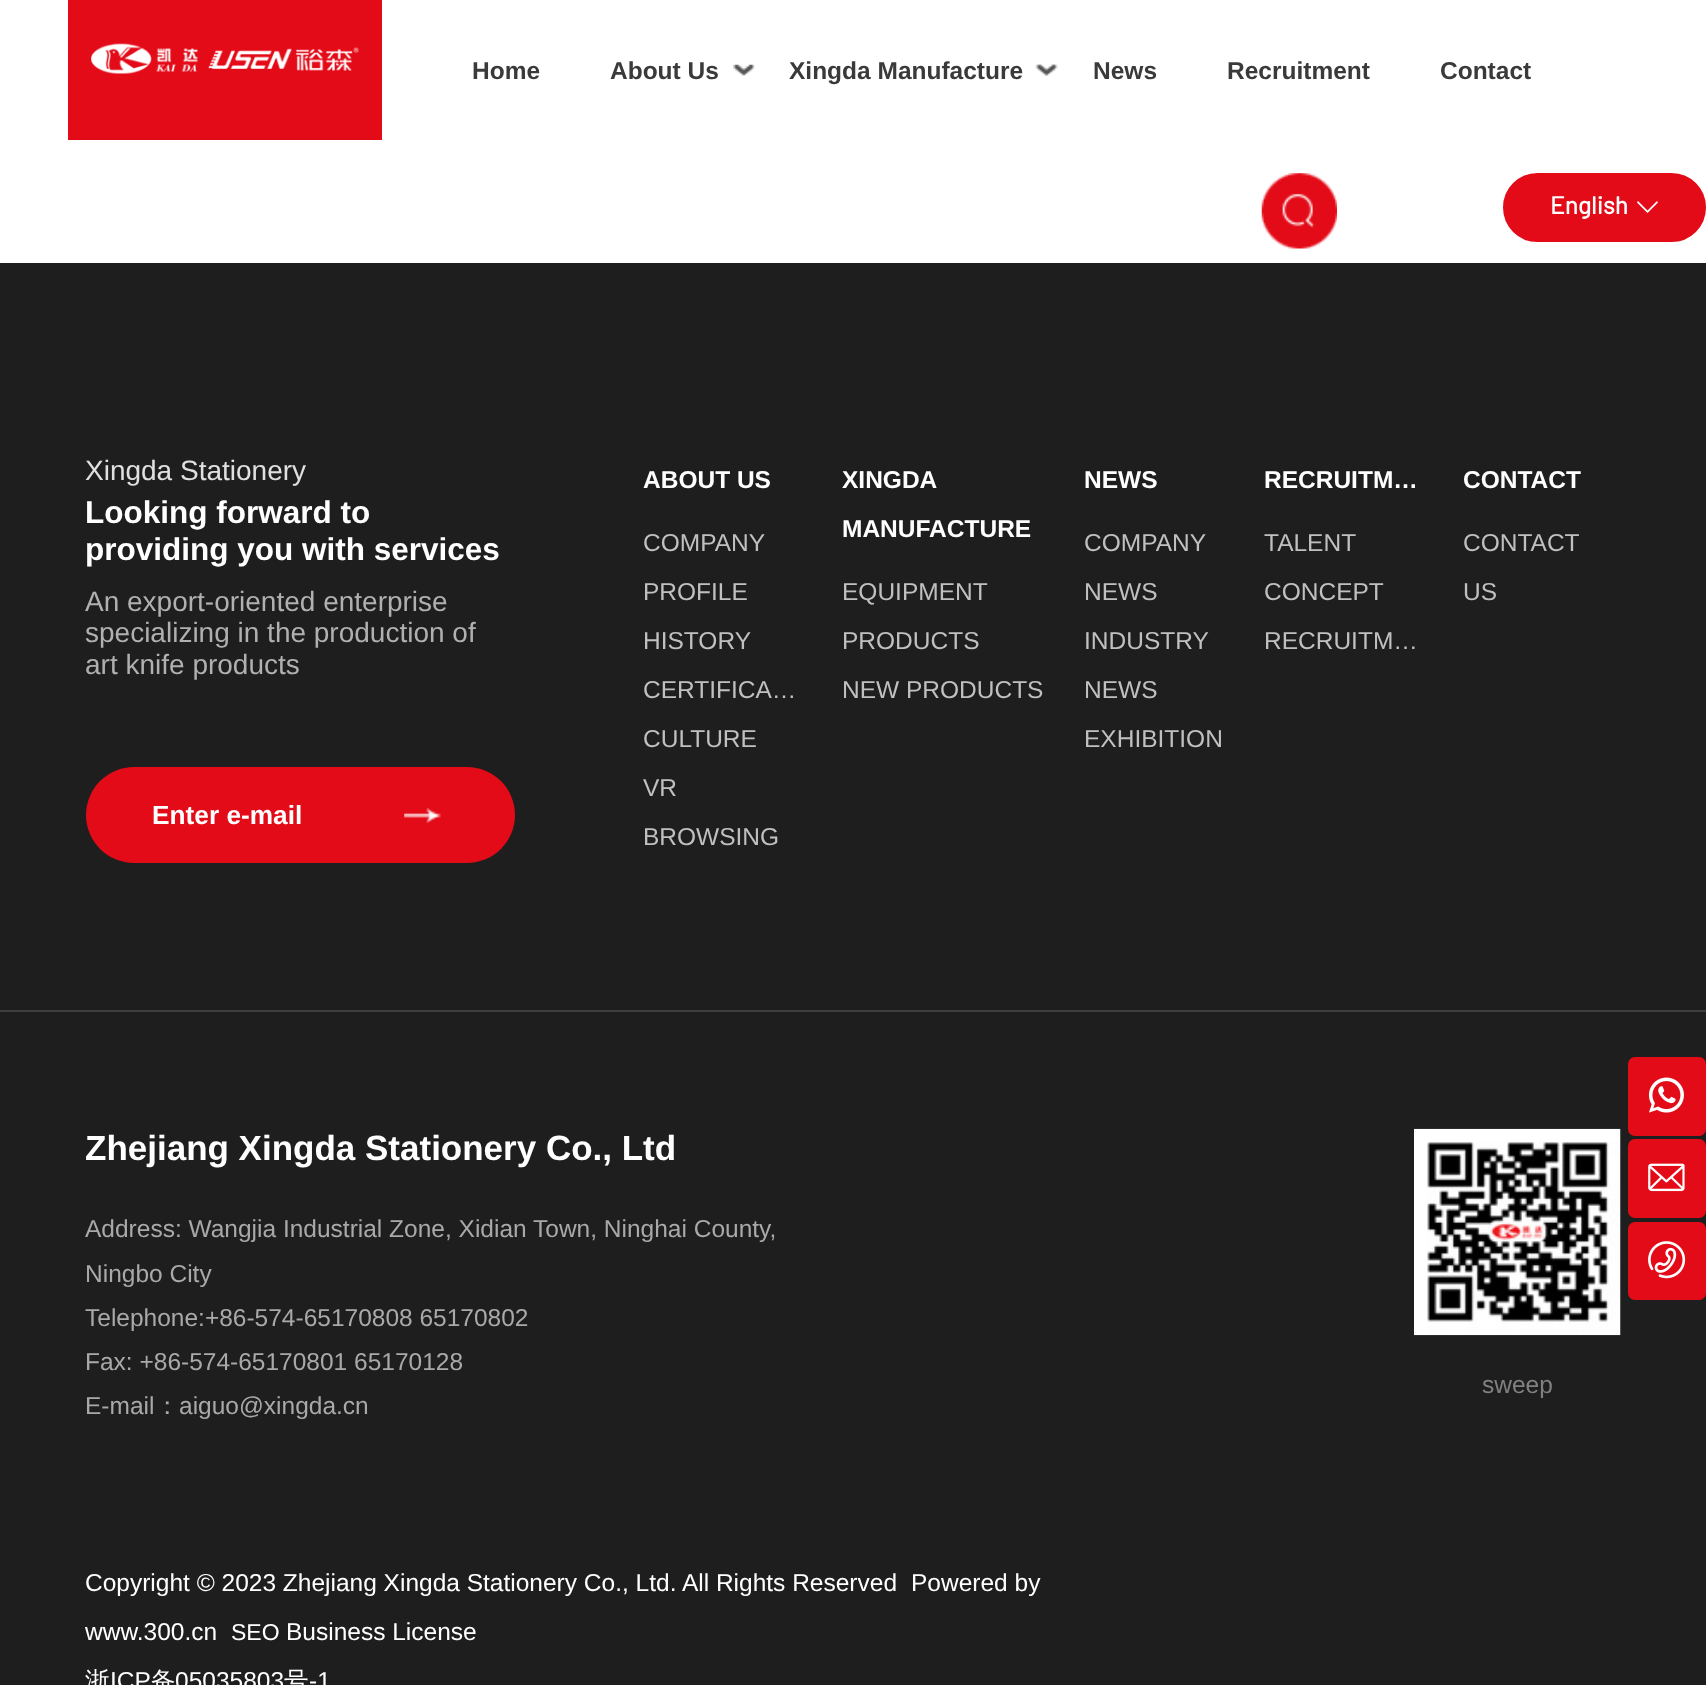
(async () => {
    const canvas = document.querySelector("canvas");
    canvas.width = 1706;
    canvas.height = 1685;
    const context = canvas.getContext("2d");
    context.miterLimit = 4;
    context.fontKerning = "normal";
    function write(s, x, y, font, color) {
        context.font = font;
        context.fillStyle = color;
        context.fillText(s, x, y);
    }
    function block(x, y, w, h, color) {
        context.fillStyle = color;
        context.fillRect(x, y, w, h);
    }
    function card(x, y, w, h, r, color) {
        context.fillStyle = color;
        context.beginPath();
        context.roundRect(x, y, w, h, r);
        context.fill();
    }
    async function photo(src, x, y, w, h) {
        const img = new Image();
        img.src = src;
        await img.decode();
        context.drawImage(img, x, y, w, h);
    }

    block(0, 0, 1706, 1685, "rgb(255, 255, 255)");
    block(68, 0, 314, 140, "rgb(228, 11, 24)");
    await photo("media/1.png", 91, 43, 268, 31);
    write("Home", 472, 79, "bold 24.5px Liberation Sans", "rgb(58, 58, 58)");
    await photo("media/2.png", 733, 64, 22, 12);
    write("About Us", 610, 79, "bold 24.5px Liberation Sans", "rgb(58, 58, 58)");
    await photo("media/3.png", 1035, 64, 23, 12);
    write("Xingda Manufacture", 789, 79, "bold 24.5px Liberation Sans", "rgb(58, 58, 58)");
    write("News", 1093, 79, "bold 24.5px Liberation Sans", "rgb(58, 58, 58)");
    write("Recruitment", 1227, 79, "bold 24.5px Liberation Sans", "rgb(58, 58, 58)");
    write("Contact", 1440, 79, "bold 24.5px Liberation Sans", "rgb(58, 58, 58)");
    await photo("media/4.png", 1261, 173, 76, 76);
    context.fillStyle = "rgb(228, 11, 24)";
    context.beginPath();
    context.roundRect(1504, 174, 201, 67, 33.5);
    context.fill();
    context.strokeStyle = "rgb(228, 11, 24)";
    context.lineWidth = 2;
    context.stroke();
    write("English", 1550, 214, "bold 24.5px Barlow", "rgb(255, 255, 255)");
    context.beginPath();
    context.moveTo(1638, 201);
    context.lineTo(1637, 202.5);
    context.lineTo(1647.5, 213);
    context.lineTo(1658, 202.5);
    context.lineTo(1657, 201);
    context.lineTo(1647.5, 210.5);
    context.closePath();
    context.fill();
    block(0, 263, 1706, 1422, "rgb(30, 30, 30)");
    write("Xingda Stationery", 85, 480, "28px Liberation Sans", "rgb(224, 224, 224)");
    write("Looking forward to", 85, 523, "bold 31.5px Liberation Sans", "rgb(255, 255, 255)");
    write("providing you with services", 85, 560, "bold 31.5px Liberation Sans", "rgb(255, 255, 255)");
    write("An export-oriented enterprise", 85, 611, "28px Liberation Sans", "rgb(176, 176, 176)");
    write("specializing in the production of", 85, 642, "28px Liberation Sans", "rgb(176, 176, 176)");
    write("art knife products", 85, 674, "28px Liberation Sans", "rgb(176, 176, 176)");
    card(86, 767, 429, 96, 48, "rgb(228, 11, 24)");
    write("Enter e-mail", 152, 824, "bold 26.25px Liberation Sans", "rgb(255, 255, 255)");
    await photo("media/5.png", 404, 808, 37, 15);
    write("ABOUT US", 643, 488, "bold 24.5px Liberation Sans", "rgb(255, 255, 255)");
    write("COMPANY", 643, 551, "24.5px Liberation Sans", "rgb(192, 192, 192)");
    write("PROFILE", 643, 600, "24.5px Liberation Sans", "rgb(192, 192, 192)");
    write("HISTORY", 643, 649, "24.5px Liberation Sans", "rgb(192, 192, 192)");
    write("CERTIFICA…", 643, 698, "24.5px Liberation Sans", "rgb(192, 192, 192)");
    write("CULTURE", 643, 747, "24.5px Liberation Sans", "rgb(192, 192, 192)");
    write("VR", 643, 796, "24.5px Liberation Sans", "rgb(192, 192, 192)");
    write("BROWSING", 643, 845, "24.5px Liberation Sans", "rgb(192, 192, 192)");
    write("XINGDA", 842, 488, "bold 24.5px Liberation Sans", "rgb(255, 255, 255)");
    write("MANUFACTURE", 842, 537, "bold 24.5px Liberation Sans", "rgb(255, 255, 255)");
    write("EQUIPMENT", 842, 600, "24.5px Liberation Sans", "rgb(192, 192, 192)");
    write("PRODUCTS", 842, 649, "24.5px Liberation Sans", "rgb(192, 192, 192)");
    write("NEW PRODUCTS", 842, 698, "24.5px Liberation Sans", "rgb(192, 192, 192)");
    write("NEWS", 1084, 488, "bold 24.5px Liberation Sans", "rgb(255, 255, 255)");
    write("COMPANY", 1084, 551, "24.5px Liberation Sans", "rgb(192, 192, 192)");
    write("NEWS", 1084, 600, "24.5px Liberation Sans", "rgb(192, 192, 192)");
    write("INDUSTRY", 1084, 649, "24.5px Liberation Sans", "rgb(192, 192, 192)");
    write("NEWS", 1084, 698, "24.5px Liberation Sans", "rgb(192, 192, 192)");
    write("EXHIBITION", 1084, 747, "24.5px Liberation Sans", "rgb(192, 192, 192)");
    write("RECRUITM…", 1264, 488, "bold 24.5px Liberation Sans", "rgb(255, 255, 255)");
    write("TALENT", 1264, 551, "24.5px Liberation Sans", "rgb(192, 192, 192)");
    write("CONCEPT", 1264, 600, "24.5px Liberation Sans", "rgb(192, 192, 192)");
    write("RECRUITM…", 1264, 649, "24.5px Liberation Sans", "rgb(192, 192, 192)");
    write("CONTACT", 1463, 488, "bold 24.5px Liberation Sans", "rgb(255, 255, 255)");
    write("CONTACT", 1463, 551, "24.5px Liberation Sans", "rgb(192, 192, 192)");
    write("US", 1463, 600, "24.5px Liberation Sans", "rgb(192, 192, 192)");
    block(0, 1010, 1706, 2, "rgb(62, 62, 62)");
    write("Zhejiang Xingda Stationery Co., Ltd", 85, 1160, "bold 35px Liberation Sans", "rgb(255, 255, 255)");
    write("Address: Wangjia Industrial Zone, Xidian Town, Ninghai County,", 85, 1237, "24.5px Liberation Sans", "rgb(169, 169, 169)");
    write("Ningbo City", 85, 1282, "24.5px Liberation Sans", "rgb(169, 169, 169)");
    write("Telephone:+86-574-65170808 65170802", 85, 1326, "24.5px Liberation Sans", "rgb(169, 169, 169)");
    write("Fax: +86-574-65170801 65170128", 85, 1370, "24.5px Liberation Sans", "rgb(169, 169, 169)");
    write("E-mail", 85, 1414, "24.5px Liberation Sans", "rgb(169, 169, 169)");
    write("：", 155, 1414, "500 24.5px WenQuanYi Zen Hei", "rgb(169, 169, 169)");
    write("aiguo@xingda.cn", 179, 1414, "24.5px Liberation Sans", "rgb(169, 169, 169)");
    write("Copyright © 2023 Zhejiang Xingda Stationery Co., Ltd. All Rights Reserved", 85, 1591, "24.5px Liberation Sans", "rgb(255, 255, 255)");
    write("Powered by", 911, 1591, "24.5px Liberation Sans", "rgb(255, 255, 255)");
    write("www.300.cn", 85, 1640, "24.5px Liberation Sans", "rgb(255, 255, 255)");
    write("SEO", 231, 1640, "23px Liberation Sans", "rgb(255, 255, 255)");
    write("Business License", 286, 1640, "24.5px Liberation Sans", "rgb(255, 255, 255)");
    write("浙", 85, 1689, "500 24.5px WenQuanYi Zen Hei", "rgb(255, 255, 255)");
    write("ICP", 110, 1689, "24.5px Liberation Sans", "rgb(255, 255, 255)");
    write("备", 151, 1689, "500 24.5px WenQuanYi Zen Hei", "rgb(255, 255, 255)");
    write("05035803", 175, 1689, "24.5px Liberation Sans", "rgb(255, 255, 255)");
    write("号", 284, 1689, "500 24.5px WenQuanYi Zen Hei", "rgb(255, 255, 255)");
    write("-1", 309, 1689, "24.5px Liberation Sans", "rgb(255, 255, 255)");
    await photo("media/6.png", 1414, 1128, 207, 208);
    write("sweep", 1482, 1393, "24.5px Liberation Sans", "rgb(128, 128, 128)");
    card(1628, 1057, 78, 79, 7, "rgb(228, 11, 24)");
    await photo("media/7.png", 1648, 1077, 36, 36);
    card(1628, 1139, 78, 79, 7, "rgb(228, 11, 24)");
    await photo("media/8.png", 1648, 1163, 37, 29);
    card(1628, 1222, 78, 78, 7, "rgb(228, 11, 24)");
    await photo("media/9.png", 1648, 1241, 38, 38);
})();
